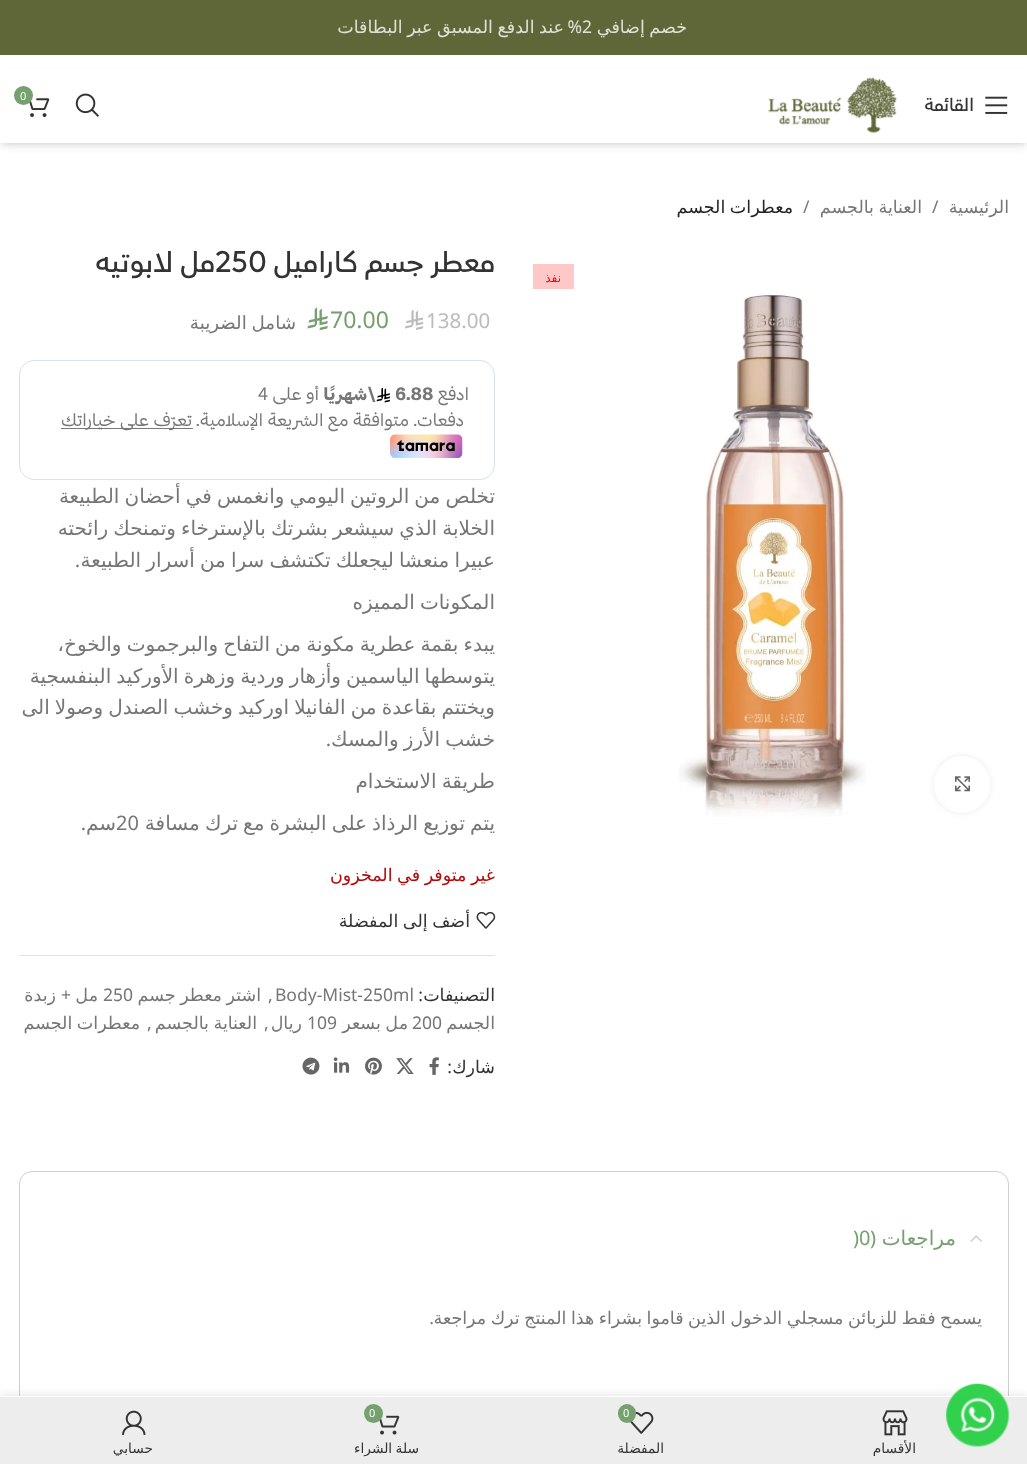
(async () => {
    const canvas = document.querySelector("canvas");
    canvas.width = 1027;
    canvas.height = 1464;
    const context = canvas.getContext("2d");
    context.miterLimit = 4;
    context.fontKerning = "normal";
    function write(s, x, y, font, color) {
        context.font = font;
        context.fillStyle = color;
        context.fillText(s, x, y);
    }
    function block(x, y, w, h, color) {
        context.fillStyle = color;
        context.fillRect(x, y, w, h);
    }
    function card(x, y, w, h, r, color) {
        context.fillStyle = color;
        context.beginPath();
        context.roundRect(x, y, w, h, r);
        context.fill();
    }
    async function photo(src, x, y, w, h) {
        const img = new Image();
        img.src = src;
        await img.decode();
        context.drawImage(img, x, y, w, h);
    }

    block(0, 0, 1027, 1464, "rgb(255, 255, 255)");
    block(0, 0, 1027, 55, "rgb(95, 103, 57)");
    context.wordSpacing = "-1px";
    context.direction = "rtl";
    write("خصم إضافي", 687, 33, "17.5px DejaVu Sans", "rgb(223, 225, 215)");
    context.wordSpacing = "0px";
    context.direction = "ltr";
    write("2", 582, 33, "17.5px Noto Sans", "rgb(223, 225, 215)");
    context.direction = "rtl";
    write("%", 582, 33, "17.5px Noto Sans", "rgb(223, 225, 215)");
    context.wordSpacing = "-1px";
    write("عند الدفع المسبق عبر البطاقات", 564, 33, "17.5px DejaVu Sans", "rgb(223, 225, 215)");
    context.fillStyle = "rgba(0, 0, 0, 0.1)";
    context.filter = "blur(2.5px)";
    context.beginPath();
    context.rect(3, 73, 1022, 70);
    context.fill();
    context.filter = "none";
    context.filter = "blur(4px)";
    context.beginPath();
    context.rect(1, 74, 1025, 72);
    context.fill();
    context.filter = "none";
    block(0, 68, 1027, 75, "rgb(255, 255, 255)");
    await photo("media/1.png", 75, 93, 24, 24);
    await photo("media/2.png", 29, 98, 21, 19);
    context.fillStyle = "rgb(118, 160, 111)";
    context.beginPath();
    context.arc(23.5, 95.5, 9.5, 0, Math.PI * 2);
    context.fill();
    context.wordSpacing = "0px";
    context.direction = "ltr";
    write("0", 20, 100, "11px Noto Sans", "rgb(255, 255, 255)");
    await photo("media/3.png", 985, 96, 23, 18);
    context.direction = "rtl";
    write("القائمة", 974, 111, "19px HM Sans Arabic", "rgb(51, 51, 51)");
    await photo("media/4.png", 768, 77, 130, 57);
    write("الرئيسية", 1009, 213, "17.5px DejaVu Sans", "rgb(118, 118, 118)");
    context.direction = "ltr";
    write("/", 932, 213, "17.5px Noto Sans", "rgb(118, 118, 118)");
    context.wordSpacing = "-1px";
    context.direction = "rtl";
    write("العناية بالجسم", 922, 213, "17.5px DejaVu Sans", "rgb(118, 118, 118)");
    context.wordSpacing = "0px";
    context.direction = "ltr";
    write("/", 803, 213, "17.5px Noto Sans", "rgb(118, 118, 118)");
    context.wordSpacing = "-1px";
    context.direction = "rtl";
    write("معطرات الجسم", 793, 213, "17.5px DejaVu Sans", "rgb(36, 36, 36)");
    block(533, 264, 41, 25, "rgb(255, 200, 200)");
    context.wordSpacing = "0px";
    write("نفذ", 561, 282, "12px DejaVu Sans", "rgb(255, 0, 0)");
    context.fillStyle = "rgba(0, 0, 0, 0.08)";
    context.filter = "blur(3px)";
    context.beginPath();
    context.roundRect(934, 756, 56, 57, 28);
    context.fill();
    context.filter = "none";
    card(934, 756, 56, 57, 28, "rgb(255, 255, 255)");
    await photo("media/5.png", 955, 776, 15, 16);
    await photo("media/6.png", 678, 292, 188, 525);
    write("معطر جسم كاراميل", 495, 272, "30px HM Sans Arabic", "rgb(51, 51, 51)");
    context.direction = "ltr";
    write("250", 215, 272, "30px HM Sans Arabic", "rgb(51, 51, 51)");
    context.direction = "rtl";
    write("مل لابوتيه", 215, 272, "30px HM Sans Arabic", "rgb(51, 51, 51)");
    context.direction = "ltr";
    write("138.00", 426, 328, "20.5px Noto Sans", "rgb(187, 187, 187)");
    await photo("media/7.png", 405, 309, 19, 21);
    write("70.00", 330, 328, "23px Noto Sans", "rgb(118, 160, 111)");
    await photo("media/8.png", 307, 307, 21, 24);
    context.wordSpacing = "-1px";
    context.direction = "rtl";
    write("شامل الضريبة", 296, 329, "18.25px DejaVu Sans", "rgb(118, 118, 118)");
    context.beginPath();
    context.roundRect(19.5, 360.5, 475, 119, 14.5);
    context.strokeStyle = "rgb(218, 224, 235)";
    context.stroke();
    context.wordSpacing = "0px";
    write("ادفع", 469, 400, "17.5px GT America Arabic", "rgb(118, 118, 118)");
    context.direction = "ltr";
    write("6.88", 395, 400, "bold 17.5px GT America Arabic", "rgb(118, 118, 118)");
    await photo("media/9.png", 376, 388, 14, 15);
    context.direction = "rtl";
    write("\\شهريًا", 376, 400, "bold 17.5px GT America Arabic", "rgb(118, 118, 118)");
    write("أو على", 319, 400, "17.5px GT America Arabic", "rgb(118, 118, 118)");
    context.direction = "ltr";
    write("4", 258, 400, "17.5px GT America Arabic", "rgb(118, 118, 118)");
    context.direction = "rtl";
    write("دفعات. متوافقة مع الشريعة الإسلامية.", 464, 426, "17.5px GT America Arabic", "rgb(118, 118, 118)");
    block(61, 428, 132, 1, "rgb(119, 119, 119)");
    write("تعرّف على خياراتك", 192, 426, "17.5px GT America Arabic", "rgb(118, 118, 118)");
    await photo("media/10.png", 390, 434, 73, 24);
    context.wordSpacing = "-1.25px";
    write("تخلص من الروتين اليومي وانغمس في أحضان الطبيعة", 495, 503, "20px DejaVu Sans", "rgb(118, 118, 118)");
    write("الخلابة الذي سيشعر بشرتك بالإسترخاء وتمنحك رائحته", 495, 535, "20px DejaVu Sans", "rgb(118, 118, 118)");
    write("عبيرا منعشا ليجعلك تكتشف سرا من أسرار الطبيعة", 495, 567, "20px DejaVu Sans", "rgb(118, 118, 118)");
    context.wordSpacing = "0px";
    write(".", 80, 567, "20px Noto Sans", "rgb(118, 118, 118)");
    context.wordSpacing = "-1.25px";
    write("المكونات المميزه", 495, 609, "20px DejaVu Sans", "rgb(118, 118, 118)");
    write("يبدء بقمة عطرية مكونة من التفاح والبرجموت والخوخ،", 495, 651, "20px DejaVu Sans", "rgb(118, 118, 118)");
    write("يتوسطها الياسمين وأزهار وردية وزهرة الأوركيد البنفسجية", 495, 683, "20px DejaVu Sans", "rgb(118, 118, 118)");
    write("ويختتم بقاعدة من الفانيلا اوركيد وخشب الصندل وصولا الى", 495, 714, "20px DejaVu Sans", "rgb(118, 118, 118)");
    write("خشب الأرز والمسك", 495, 746, "20px DejaVu Sans", "rgb(118, 118, 118)");
    context.wordSpacing = "0px";
    write(".", 331, 746, "20px Noto Sans", "rgb(118, 118, 118)");
    context.wordSpacing = "-1.25px";
    write("طريقة الاستخدام", 495, 788, "20px DejaVu Sans", "rgb(118, 118, 118)");
    write("يتم توزيع الرذاذ على البشرة مع ترك مسافة", 495, 830, "20px DejaVu Sans", "rgb(118, 118, 118)");
    context.wordSpacing = "0px";
    context.direction = "ltr";
    write("20", 116, 830, "20px Noto Sans", "rgb(118, 118, 118)");
    context.direction = "rtl";
    write("سم", 116, 830, "20px DejaVu Sans", "rgb(118, 118, 118)");
    write(".", 86, 830, "20px Noto Sans", "rgb(118, 118, 118)");
    context.wordSpacing = "-1px";
    write("غير متوفر في المخزون", 495, 881, "17.5px DejaVu Sans", "rgb(181, 8, 8)");
    await photo("media/11.png", 476, 911, 20, 18);
    write("أضف إلى المفضلة", 470, 927, "17.5px DejaVu Sans", "rgb(51, 51, 51)");
    block(19, 955, 476, 1, "rgb(228, 228, 228)");
    context.wordSpacing = "0px";
    write("التصنيفات", 495, 1001, "17.5px DejaVu Sans", "rgb(51, 51, 51)");
    write(":", 423, 1001, "17.5px Noto Sans", "rgb(51, 51, 51)");
    context.direction = "ltr";
    write("Body-Mist-250ml", 275, 1001, "17.5px Noto Sans", "rgb(118, 118, 118)");
    write(",", 268, 1001, "17.5px Noto Sans", "rgb(118, 118, 118)");
    context.wordSpacing = "-1px";
    context.direction = "rtl";
    write("اشتر معطر جسم", 261, 1001, "17.5px DejaVu Sans", "rgb(118, 118, 118)");
    context.wordSpacing = "0px";
    context.direction = "ltr";
    write("250", 103, 1001, "17.5px Noto Sans", "rgb(118, 118, 118)");
    context.direction = "rtl";
    write("مل", 98, 1001, "17.5px DejaVu Sans", "rgb(118, 118, 118)");
    write("+", 71, 1001, "17.5px Noto Sans", "rgb(118, 118, 118)");
    write("زبدة", 56, 1001, "17.5px DejaVu Sans", "rgb(118, 118, 118)");
    write("الجسم", 495, 1029, "17.5px DejaVu Sans", "rgb(118, 118, 118)");
    context.direction = "ltr";
    write("200", 412, 1029, "17.5px Noto Sans", "rgb(118, 118, 118)");
    context.wordSpacing = "-1px";
    context.direction = "rtl";
    write("مل بسعر", 408, 1029, "17.5px DejaVu Sans", "rgb(118, 118, 118)");
    context.wordSpacing = "0px";
    context.direction = "ltr";
    write("109", 307, 1029, "17.5px Noto Sans", "rgb(118, 118, 118)");
    context.direction = "rtl";
    write("ريال", 302, 1029, "17.5px DejaVu Sans", "rgb(118, 118, 118)");
    context.direction = "ltr";
    write(",", 264, 1029, "17.5px Noto Sans", "rgb(118, 118, 118)");
    context.wordSpacing = "-1px";
    context.direction = "rtl";
    write("العناية بالجسم", 257, 1029, "17.5px DejaVu Sans", "rgb(118, 118, 118)");
    context.wordSpacing = "0px";
    context.direction = "ltr";
    write(",", 147, 1029, "17.5px Noto Sans", "rgb(118, 118, 118)");
    context.wordSpacing = "-1px";
    context.direction = "rtl";
    write("معطرات الجسم", 140, 1029, "17.5px DejaVu Sans", "rgb(118, 118, 118)");
    context.wordSpacing = "0px";
    write("شارك", 495, 1073, "17.5px DejaVu Sans", "rgb(51, 51, 51)");
    write(":", 452, 1073, "17.5px Noto Sans", "rgb(51, 51, 51)");
    await photo("media/12.png", 429, 1057, 10, 18);
    await photo("media/13.png", 396, 1058, 18, 16);
    await photo("media/14.png", 365, 1057, 17, 18);
    await photo("media/15.png", 333, 1057, 17, 16);
    await photo("media/16.png", 302, 1057, 18, 18);
    context.beginPath();
    context.roundRect(19.5, 1171.5, 989, 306, 12.5);
    context.strokeStyle = "rgb(207, 207, 207)";
    context.stroke();
    await photo("media/17.png", 970, 1235, 12, 7);
    write("مراجعات", 956, 1245, "20px DejaVu Sans", "rgb(118, 160, 111)");
    write("(", 876, 1245, "20px Noto Sans", "rgb(118, 160, 111)");
    context.direction = "ltr";
    write(")0", 853, 1245, "20px Noto Sans", "rgb(118, 160, 111)");
    context.wordSpacing = "-1px";
    context.direction = "rtl";
    write("يسمح فقط للزبائن مسجلي الدخول الذين قاموا بشراء هذا المنتج ترك مراجعة", 982, 1324, "17.5px DejaVu Sans", "rgb(118, 118, 118)");
    context.wordSpacing = "0px";
    write(".", 434, 1324, "17.5px Noto Sans", "rgb(118, 118, 118)");
    context.fillStyle = "rgba(0, 0, 0, 0.12)";
    context.filter = "blur(5.5px)";
    context.beginPath();
    context.rect(0, 1396, 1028, 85);
    context.fill();
    context.filter = "none";
    block(0, 1397, 1027, 67, "rgb(237, 237, 237)");
    block(0, 1396, 1027, 1, "rgb(255, 255, 255)");
    await photo("media/18.png", 946, 1383, 64, 64);
    await photo("media/19.png", 882, 1410, 26, 26);
    context.save();
    context.beginPath();
    context.rect(780, 1440, 229, 16);
    context.clip();
    write("الأقسام", 916, 1453, "13.75px DejaVu Sans", "rgb(51, 51, 51)");
    context.restore();
    await photo("media/20.png", 630, 1411, 24, 23);
    card(618, 1404, 18, 19, 9, "rgb(118, 160, 111)");
    context.direction = "ltr";
    write("0", 623, 1417, "11px Noto Sans", "rgb(255, 255, 255)");
    context.direction = "rtl";
    write("المفضلة", 664, 1453, "13.75px DejaVu Sans", "rgb(51, 51, 51)");
    await photo("media/21.png", 379, 1415, 21, 20);
    context.fillStyle = "rgb(118, 160, 111)";
    context.beginPath();
    context.arc(373.5, 1413.5, 9.5, 0, Math.PI * 2);
    context.fill();
    context.direction = "ltr";
    write("0", 369, 1417, "11px Noto Sans", "rgb(255, 255, 255)");
    context.wordSpacing = "-1px";
    context.direction = "rtl";
    write("سلة الشراء", 419, 1453, "13.75px DejaVu Sans", "rgb(51, 51, 51)");
    await photo("media/22.png", 122, 1410, 24, 25);
    context.save();
    context.beginPath();
    context.rect(19, 1440, 229, 16);
    context.clip();
    context.wordSpacing = "0px";
    write("حسابي", 153, 1453, "13.75px DejaVu Sans", "rgb(51, 51, 51)");
    context.restore();
})();
